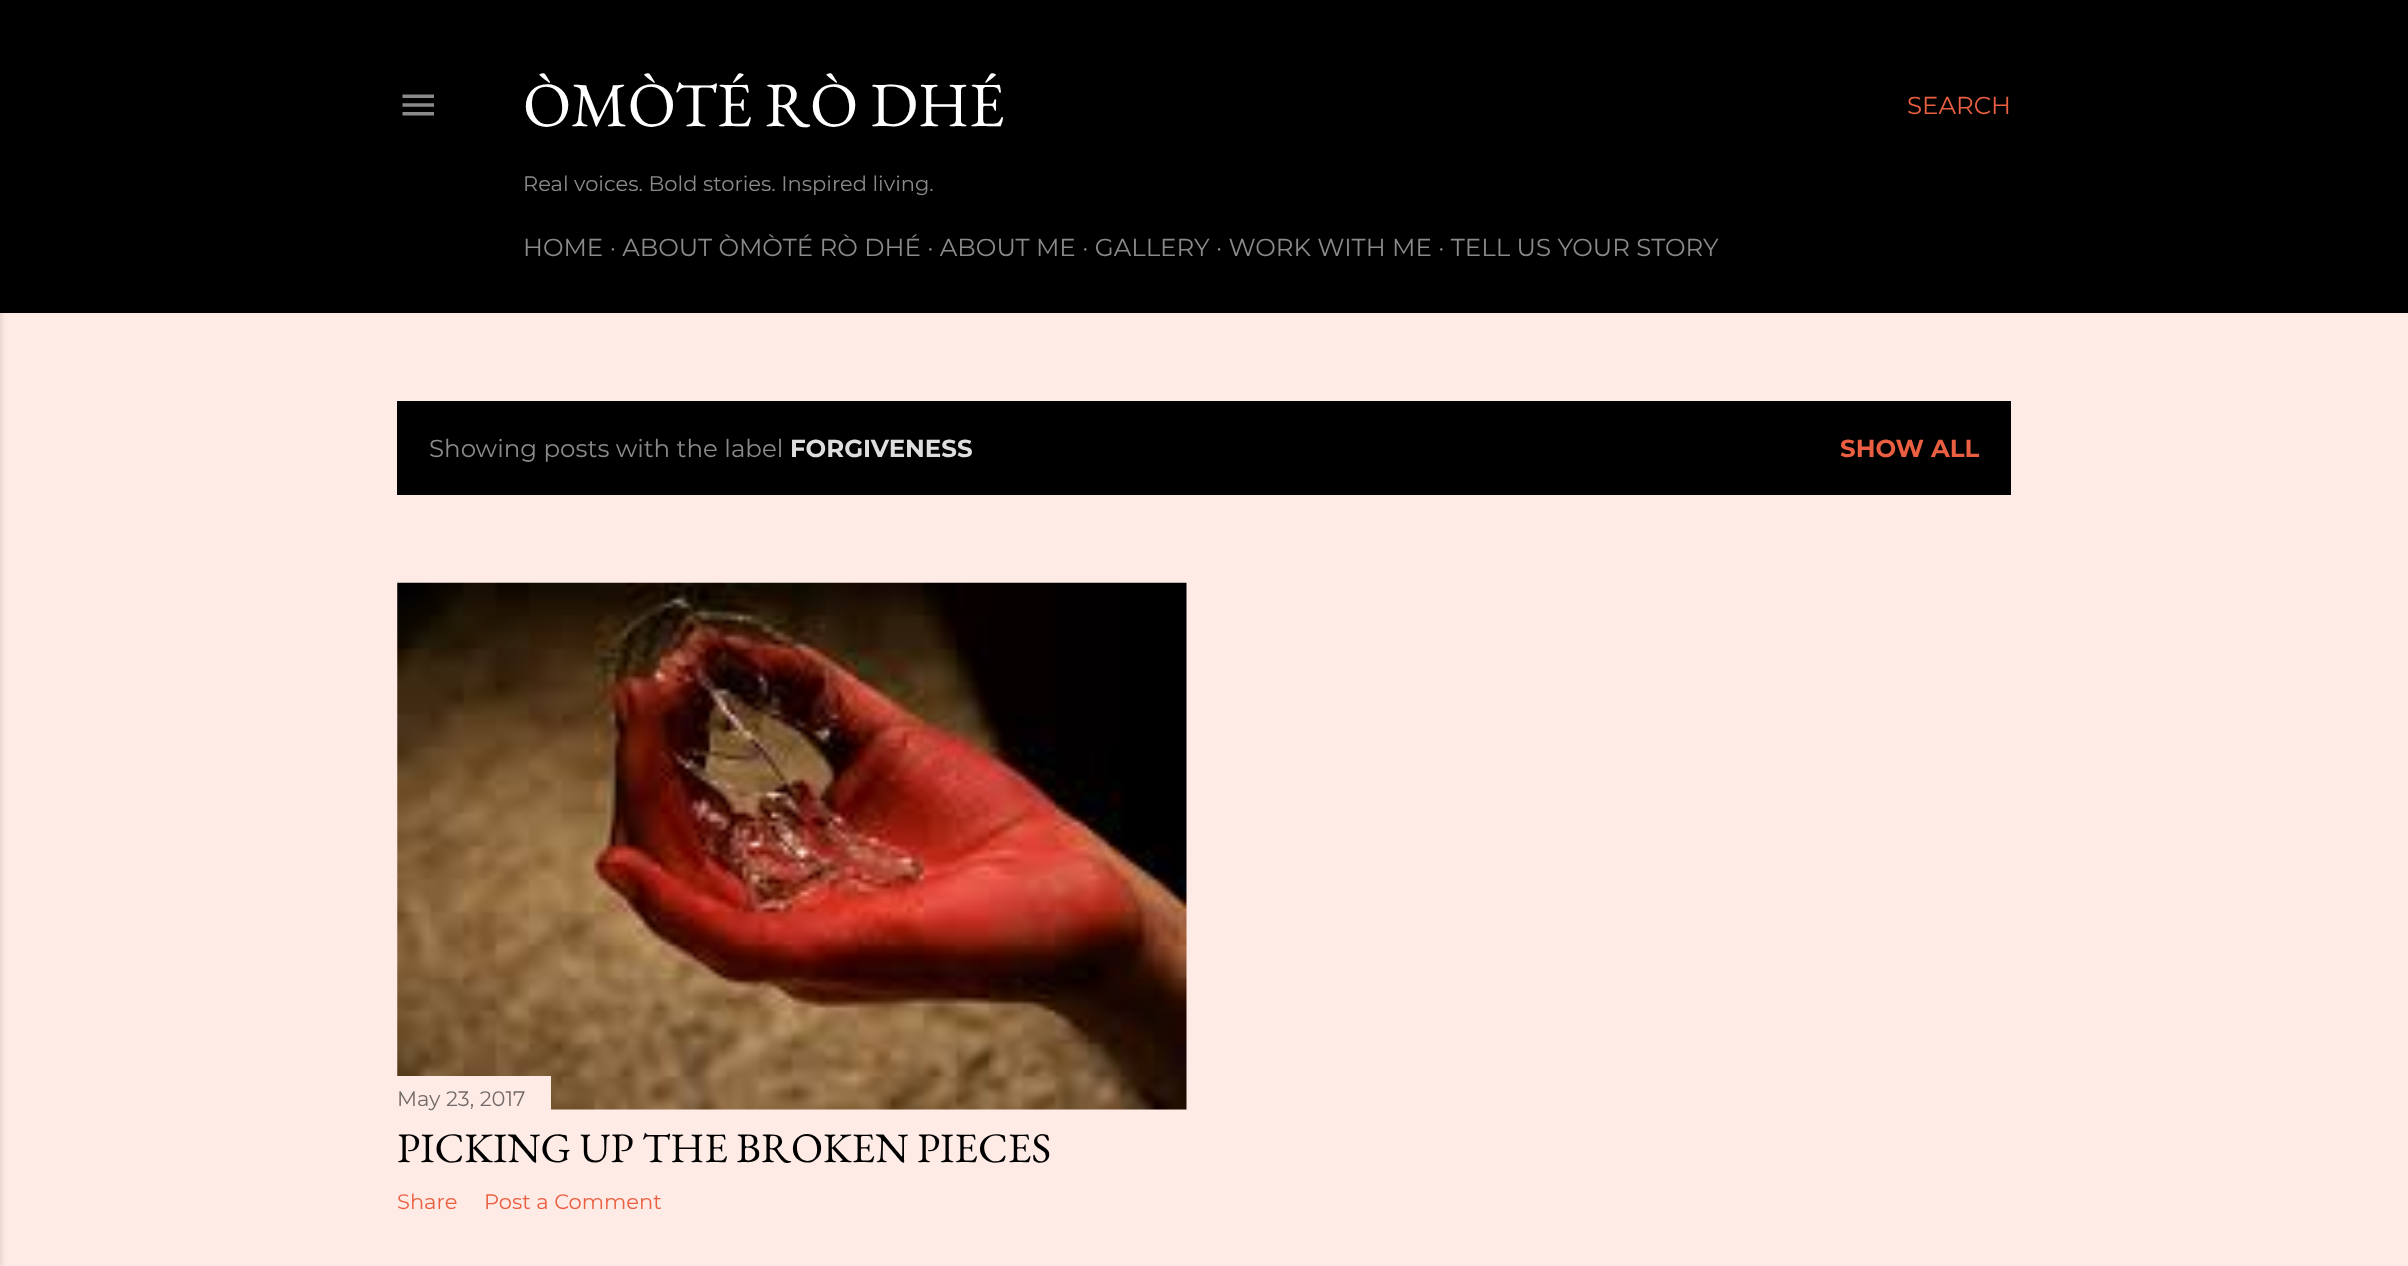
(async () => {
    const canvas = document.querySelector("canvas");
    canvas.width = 2408;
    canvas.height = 1266;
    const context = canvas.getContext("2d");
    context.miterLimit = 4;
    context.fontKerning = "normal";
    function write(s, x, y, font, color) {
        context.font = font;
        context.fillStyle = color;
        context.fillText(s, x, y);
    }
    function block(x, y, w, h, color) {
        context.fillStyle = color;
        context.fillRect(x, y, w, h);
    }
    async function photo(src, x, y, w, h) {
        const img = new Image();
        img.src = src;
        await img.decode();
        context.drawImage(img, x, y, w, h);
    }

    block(0, 0, 2408, 1266, "rgb(254, 235, 230)");
    block(0, 0, 2408, 313, "rgb(0, 0, 0)");
    context.fillStyle = "rgba(0, 0, 0, 0.1)";
    context.filter = "blur(2.5px)";
    context.beginPath();
    context.rect(-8, 0, 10, 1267);
    context.fill();
    context.filter = "none";
    await photo("media/1.png", 402, 94, 32, 22);
    write("ÒMÒTÉ RÒ DHÉ", 523, 126, "63px EB Garamond", "rgb(255, 255, 255)");
    write("Real voices. Bold stories. Inspired living.", 523, 191, "21px Montserrat", "rgb(138, 138, 138)");
    write("HOME · ABOUT ÒMÒTÉ RÒ DHÉ · ABOUT ME · GALLERY · WORK WITH ME · TELL US YOUR STORY", 523, 256, "24.5px Montserrat", "rgb(138, 138, 138)");
    write("SEARCH", 1907, 114, "24.5px Montserrat", "rgb(234, 95, 65)");
    block(397, 401, 1614, 94, "rgb(0, 0, 0)");
    write("Showing posts with the label", 429, 457, "24.5px Montserrat", "rgb(138, 138, 138)");
    write("FORGIVENESS", 790, 457, "bold 24.5px Montserrat", "rgb(222, 222, 222)");
    write("SHOW ALL", 1840, 457, "bold 24.5px Montserrat", "rgb(234, 95, 65)");
    await photo("media/2.png", 397, 582, 790, 528);
    block(397, 1076, 154, 34, "rgb(254, 235, 230)");
    write("May 23, 2017", 397, 1106, "21px Montserrat", "rgb(117, 108, 106)");
    write("PICKING UP THE BROKEN PIECES", 397, 1162, "42px EB Garamond", "rgb(0, 0, 0)");
    write("Share", 397, 1209, "21px Montserrat", "rgb(234, 95, 65)");
    write("Post a Comment", 484, 1209, "21px Montserrat", "rgb(234, 95, 65)");
})();
